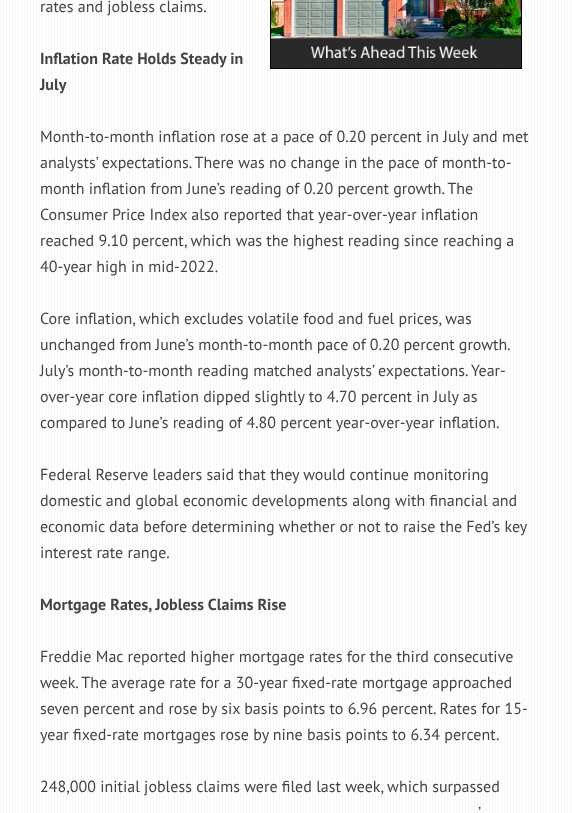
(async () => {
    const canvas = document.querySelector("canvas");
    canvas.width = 572;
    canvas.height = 813;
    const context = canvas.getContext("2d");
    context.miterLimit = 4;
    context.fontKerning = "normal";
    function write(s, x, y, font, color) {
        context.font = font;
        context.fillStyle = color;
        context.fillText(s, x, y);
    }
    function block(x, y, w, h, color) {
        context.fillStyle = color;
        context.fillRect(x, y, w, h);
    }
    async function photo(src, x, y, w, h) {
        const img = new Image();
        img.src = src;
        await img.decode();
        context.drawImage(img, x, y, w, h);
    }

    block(0, 0, 572, 813, "rgb(255, 255, 255)");
    await photo("media/1.png", 0, 0, 571, 813);
    write("rates and jobless claims.", 40, 12, "16px PT Sans", "rgb(68, 68, 68)");
    context.strokeStyle = "rgb(0, 0, 0)";
    context.strokeRect(270.5, -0.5, 251, 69);
    await photo("media/2.png", 271, 0, 250, 68);
    write("Inflation Rate Holds Steady in", 40, 64, "bold 16px PT Sans", "rgb(68, 68, 68)");
    write("July", 40, 90, "bold 16px PT Sans", "rgb(68, 68, 68)");
    write("Month-to-month inflation rose at a pace of 0.20 percent in July and met", 40, 142, "16px PT Sans", "rgb(68, 68, 68)");
    write("analysts’ expectations. There was no change in the pace of month-to-", 40, 168, "16px PT Sans", "rgb(68, 68, 68)");
    write("month inflation from June’s reading of 0.20 percent growth. The", 40, 194, "16px PT Sans", "rgb(68, 68, 68)");
    write("Consumer Price Index also reported that year-over-year inflation", 40, 220, "16px PT Sans", "rgb(68, 68, 68)");
    write("reached 9.10 percent, which was the highest reading since reaching a", 40, 246, "16px PT Sans", "rgb(68, 68, 68)");
    write("40-year high in mid-2022.", 40, 272, "16px PT Sans", "rgb(68, 68, 68)");
    write("Core inflation, which excludes volatile food and fuel prices, was", 40, 324, "16px PT Sans", "rgb(68, 68, 68)");
    context.wordSpacing = "-0.25px";
    write("unchanged from June’s month-to-month pace of 0.20 percent growth.", 40, 350, "16px PT Sans", "rgb(68, 68, 68)");
    context.wordSpacing = "0px";
    write("July’s month-to-month reading matched analysts’ expectations. Year-", 40, 376, "16px PT Sans", "rgb(68, 68, 68)");
    write("over-year core inflation dipped slightly to 4.70 percent in July as", 40, 402, "16px PT Sans", "rgb(68, 68, 68)");
    write("compared to June’s reading of 4.80 percent year-over-year inflation.", 40, 428, "16px PT Sans", "rgb(68, 68, 68)");
    write("Federal Reserve leaders said that they would continue monitoring", 40, 480, "16px PT Sans", "rgb(68, 68, 68)");
    write("domestic and global economic developments along with financial and", 40, 506, "16px PT Sans", "rgb(68, 68, 68)");
    write("economic data before determining whether or not to raise the Fed’s key", 40, 532, "16px PT Sans", "rgb(68, 68, 68)");
    write("interest rate range.", 40, 558, "16px PT Sans", "rgb(68, 68, 68)");
    write("Mortgage Rates, Jobless Claims Rise", 40, 610, "bold 16px PT Sans", "rgb(68, 68, 68)");
    write("Freddie Mac reported higher mortgage rates for the third consecutive", 40, 662, "16px PT Sans", "rgb(68, 68, 68)");
    write("week. The average rate for a 30-year fixed-rate mortgage approached", 40, 688, "16px PT Sans", "rgb(68, 68, 68)");
    write("seven percent and rose by six basis points to 6.96 percent. Rates for 15-", 40, 714, "16px PT Sans", "rgb(68, 68, 68)");
    write("year fixed-rate mortgages rose by nine basis points to 6.34 percent.", 40, 740, "16px PT Sans", "rgb(68, 68, 68)");
    write("248,000 initial jobless claims were filed last week, which surpassed", 40, 792, "16px PT Sans", "rgb(68, 68, 68)");
    write("’", 478, 818, "16px PT Sans", "rgb(68, 68, 68)");
})();
